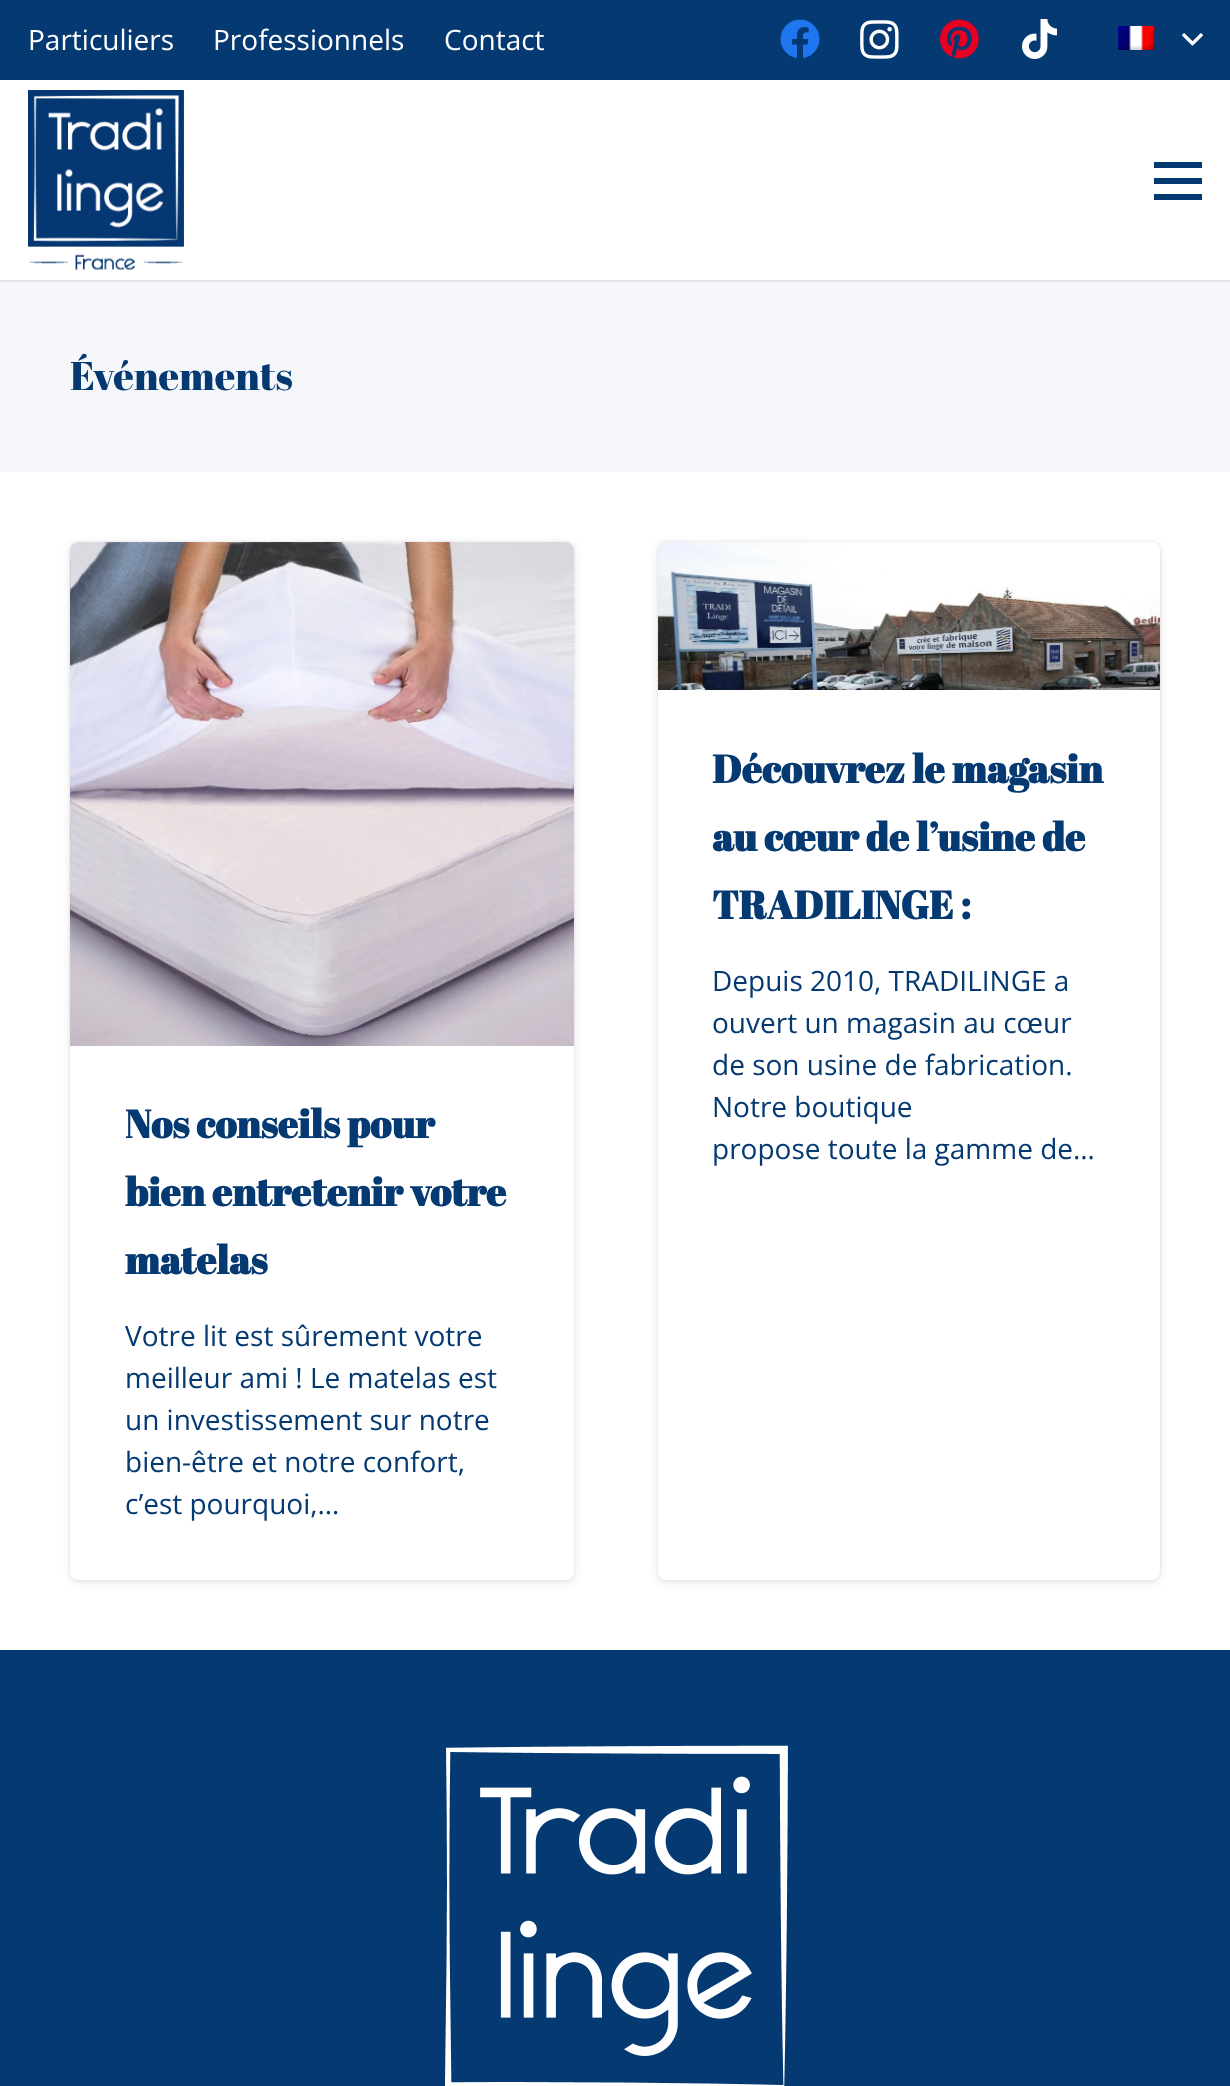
(async () => {
    const canvas = document.querySelector("canvas");
    canvas.width = 1230;
    canvas.height = 2086;
    const context = canvas.getContext("2d");
    context.miterLimit = 4;
    context.fontKerning = "normal";
    function write(s, x, y, font, color) {
        context.font = font;
        context.fillStyle = color;
        context.fillText(s, x, y);
    }
    function block(x, y, w, h, color) {
        context.fillStyle = color;
        context.fillRect(x, y, w, h);
    }
    function card(x, y, w, h, r, color) {
        context.fillStyle = color;
        context.beginPath();
        context.roundRect(x, y, w, h, r);
        context.fill();
    }
    async function photo(src, x, y, w, h) {
        const img = new Image();
        img.src = src;
        await img.decode();
        context.drawImage(img, x, y, w, h);
    }

    block(0, 0, 1230, 2086, "rgb(255, 255, 255)");
    block(0, 0, 1230, 80, "rgb(4, 57, 114)");
    write("Particuliers", 28, 50, "28px Open Sans", "rgb(255, 255, 255)");
    write("Professionnels", 213, 50, "28px Open Sans", "rgb(255, 255, 255)");
    write("Contact", 444, 50, "28px Open Sans", "rgb(255, 255, 255)");
    await photo("media/1.png", 780, 19, 40, 40);
    await photo("media/2.png", 860, 20, 39, 39);
    await photo("media/3.png", 940, 19, 39, 40);
    await photo("media/4.png", 1022, 19, 35, 40);
    await photo("media/5.png", 1118, 26, 37, 24);
    await photo("media/6.png", 1182, 33, 21, 13);
    block(0, 280, 1230, 2, "rgb(225, 227, 230)");
    await photo("media/7.png", 28, 90, 156, 180);
    block(1154, 178, 48, 6, "rgb(4, 57, 114)");
    block(1154, 162, 48, 6, "rgb(4, 57, 114)");
    block(1154, 194, 48, 6, "rgb(4, 57, 114)");
    block(0, 282, 1230, 190, "rgb(245, 247, 250)");
    write("Événements", 70, 390, "40px Abril Fatface", "rgb(4, 57, 114)");
    context.fillStyle = "rgba(0, 0, 0, 0.1)";
    context.filter = "blur(4px)";
    context.beginPath();
    context.roundRect(658, 544, 502, 1038, 8);
    context.fill();
    context.filter = "none";
    context.filter = "blur(1px)";
    context.beginPath();
    context.roundRect(658, 542, 502, 1038, 8);
    context.fill();
    context.filter = "none";
    card(658, 542, 502, 1038, 8, "rgb(255, 255, 255)");
    await photo("media/8.png", 658, 542, 502, 148);
    write("Découvrez le magasin", 712, 783, "bold 39.25px Abril Fatface", "rgb(4, 57, 114)");
    write("au cœur de l’usine de", 712, 851, "bold 39.25px Abril Fatface", "rgb(4, 57, 114)");
    write("TRADILINGE :", 712, 919, "bold 39.25px Abril Fatface", "rgb(4, 57, 114)");
    write("Depuis 2010, TRADILINGE a", 712, 991, "28px Open Sans", "rgb(4, 57, 114)");
    write("ouvert un magasin au cœur", 712, 1033, "28px Open Sans", "rgb(4, 57, 114)");
    write("de son usine de fabrication.", 712, 1075, "28px Open Sans", "rgb(4, 57, 114)");
    write("Notre boutique", 712, 1117, "28px Open Sans", "rgb(4, 57, 114)");
    write("propose toute la gamme de…", 712, 1159, "28px Open Sans", "rgb(4, 57, 114)");
    context.fillStyle = "rgba(0, 0, 0, 0.1)";
    context.filter = "blur(4px)";
    context.beginPath();
    context.roundRect(70, 544, 504, 1038, 8);
    context.fill();
    context.filter = "none";
    context.filter = "blur(1px)";
    context.beginPath();
    context.roundRect(70, 542, 504, 1038, 8);
    context.fill();
    context.filter = "none";
    card(70, 542, 504, 1038, 8, "rgb(255, 255, 255)");
    await photo("media/9.png", 70, 542, 504, 504);
    write("Nos conseils pour", 125, 1138, "bold 39.25px Abril Fatface", "rgb(4, 57, 114)");
    write("bien entretenir votre", 125, 1206, "bold 39.25px Abril Fatface", "rgb(4, 57, 114)");
    write("matelas", 125, 1274, "bold 39.25px Abril Fatface", "rgb(4, 57, 114)");
    write("Votre lit est sûrement votre", 125, 1346, "28px Open Sans", "rgb(4, 57, 114)");
    write("meilleur ami ! Le matelas est", 125, 1388, "28px Open Sans", "rgb(4, 57, 114)");
    write("un investissement sur notre", 125, 1430, "28px Open Sans", "rgb(4, 57, 114)");
    write("bien-être et notre confort,", 125, 1472, "28px Open Sans", "rgb(4, 57, 114)");
    write("c’est pourquoi,…", 125, 1514, "28px Open Sans", "rgb(4, 57, 114)");
    block(0, 1650, 1230, 436, "rgb(4, 57, 114)");
    await photo("media/10.png", 445, 1745, 343, 341);
})();
